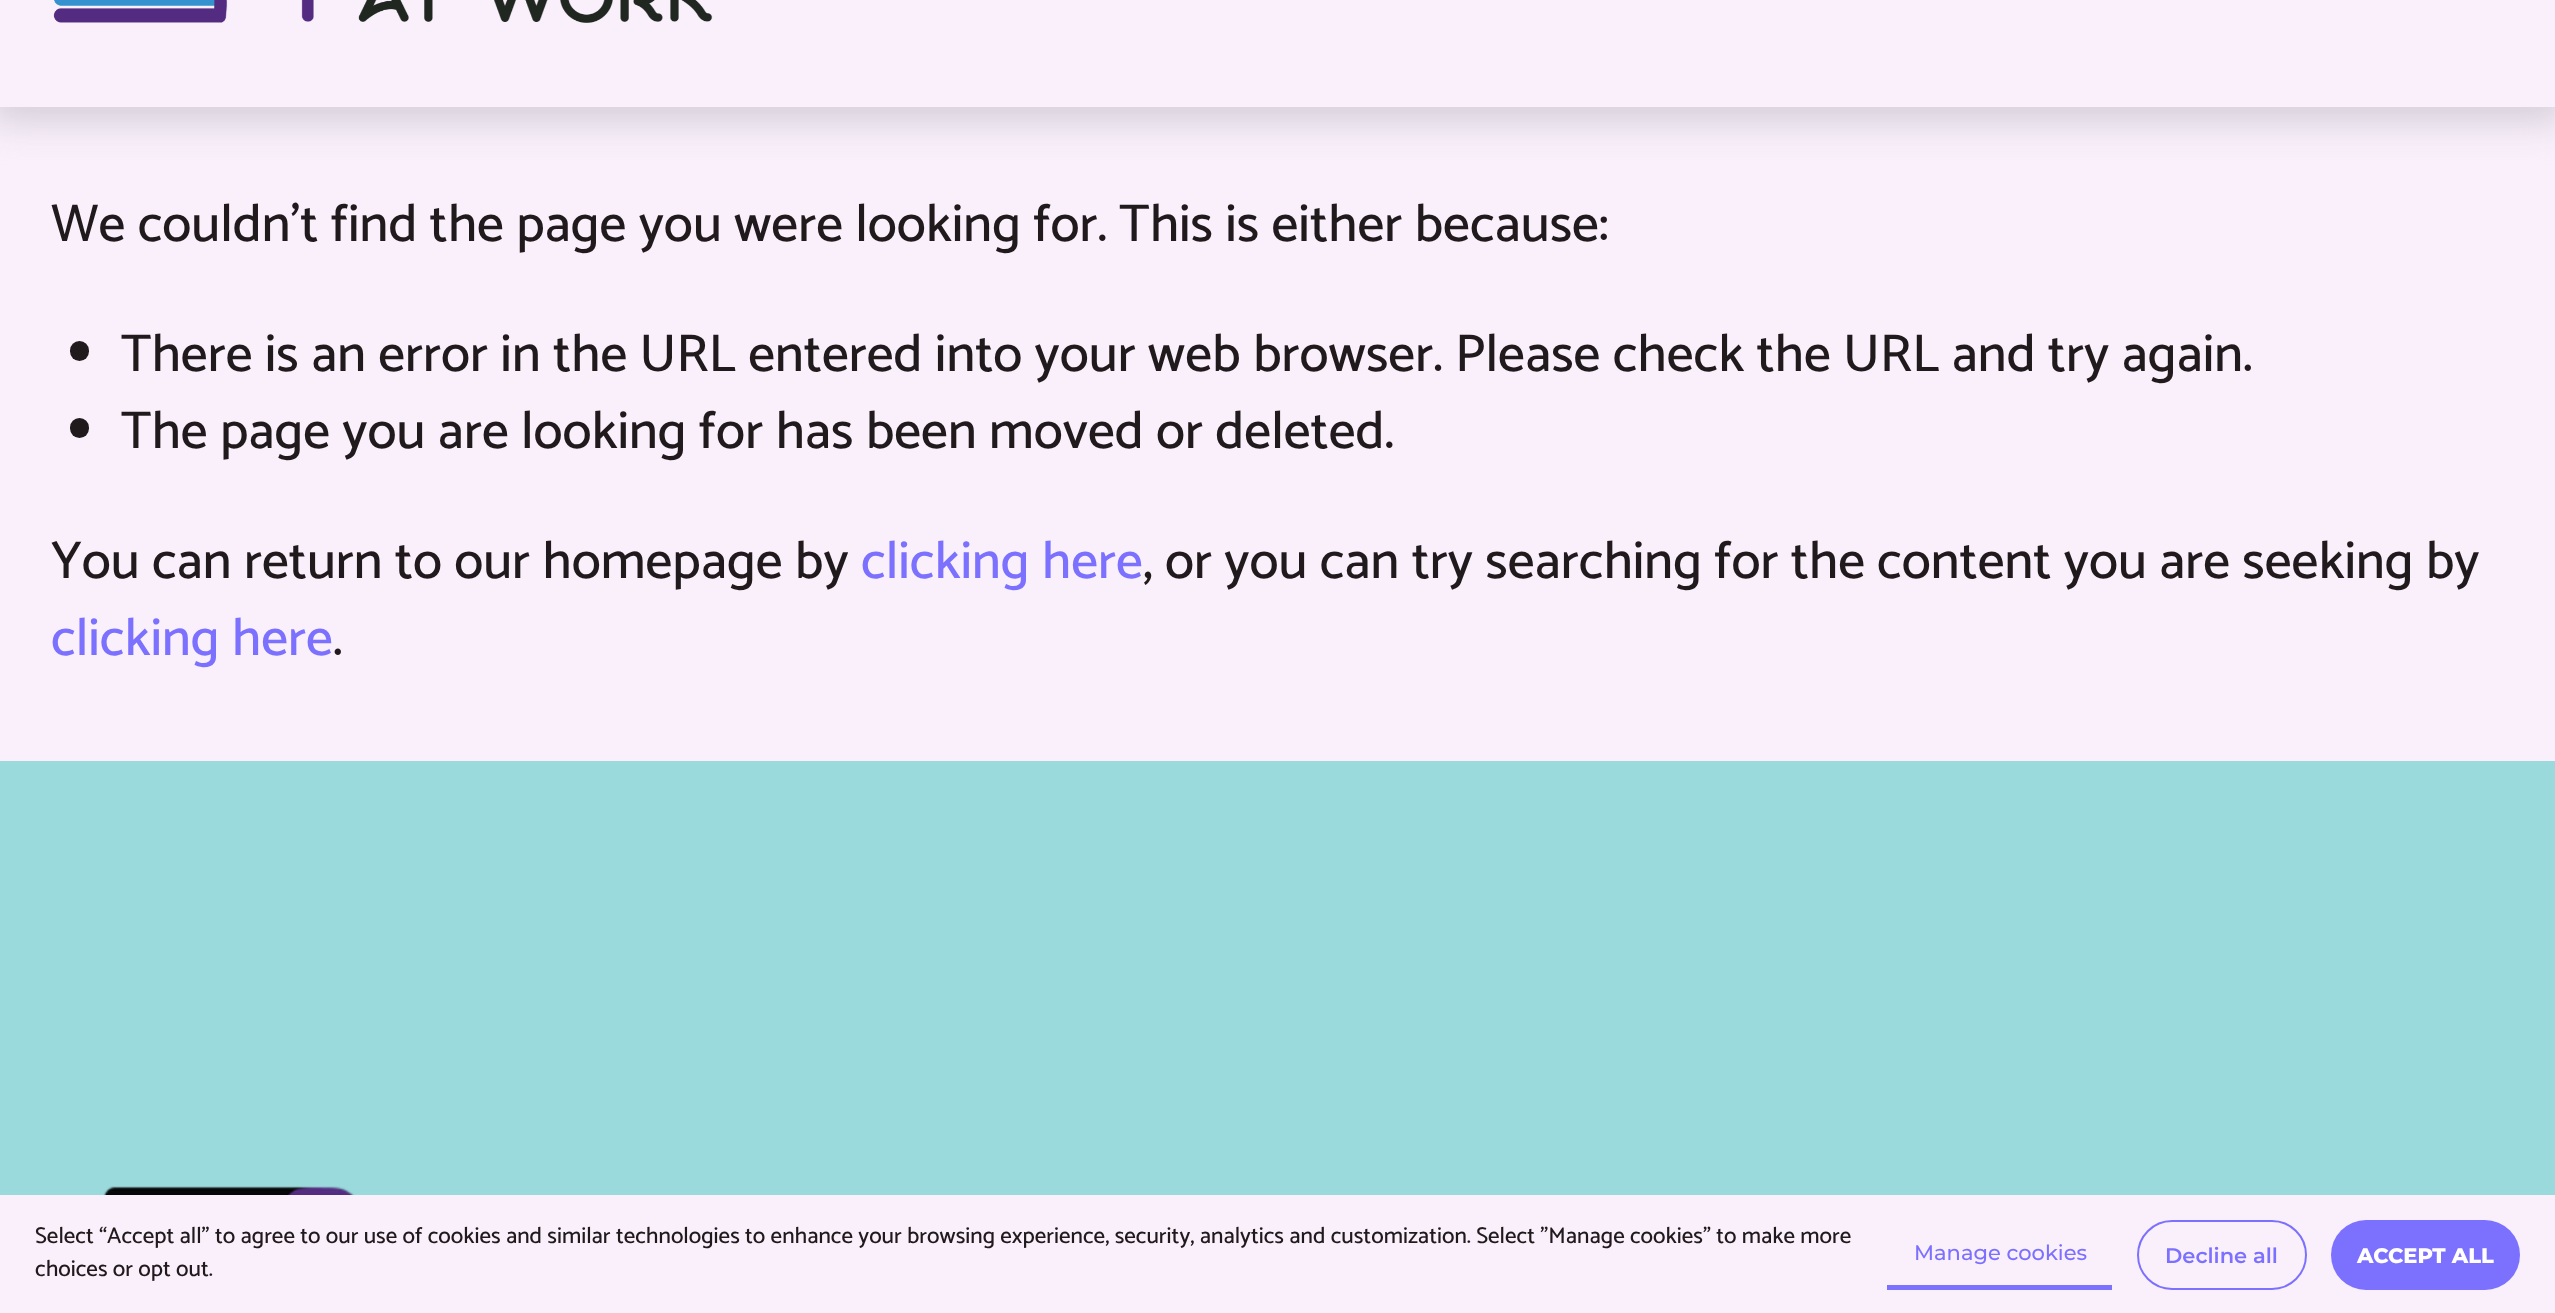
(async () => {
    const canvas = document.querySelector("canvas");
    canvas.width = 2555;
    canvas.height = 1313;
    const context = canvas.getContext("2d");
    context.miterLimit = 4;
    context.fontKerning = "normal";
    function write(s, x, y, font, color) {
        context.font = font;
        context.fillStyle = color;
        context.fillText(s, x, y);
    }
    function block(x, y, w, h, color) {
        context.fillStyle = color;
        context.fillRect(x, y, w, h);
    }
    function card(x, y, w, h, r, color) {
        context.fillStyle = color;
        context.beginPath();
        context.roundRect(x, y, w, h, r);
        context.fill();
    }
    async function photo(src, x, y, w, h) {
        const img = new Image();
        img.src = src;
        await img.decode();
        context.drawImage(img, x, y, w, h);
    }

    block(0, 0, 2555, 1313, "rgb(249, 240, 251)");
    context.save();
    context.beginPath();
    context.moveTo(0, 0);
    context.lineTo(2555, 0);
    context.lineTo(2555, 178);
    context.lineTo(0, 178);
    context.closePath();
    context.moveTo(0, -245);
    context.lineTo(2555, -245);
    context.lineTo(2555, 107);
    context.lineTo(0, 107);
    context.closePath();
    context.clip("evenodd");
    context.fillStyle = "rgb(212, 205, 215)";
    context.filter = "blur(18.5px)";
    context.beginPath();
    context.rect(-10, -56, 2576, 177);
    context.fill();
    context.filter = "none";
    context.restore();
    await photo("media/1.png", 53, 0, 660, 23);
    write("We couldn't find the page you were looking for. This is either because:", 51, 241, "500 53.25px Catamaran", "rgb(33, 26, 29)");
    card(70, 341, 19, 20, 9.5, "rgb(33, 26, 29)");
    write("There is an error in the URL entered into your web browser. Please check the URL and try again.", 121, 371, "500 53.25px Catamaran", "rgb(33, 26, 29)");
    card(70, 418, 19, 20, 9.5, "rgb(33, 26, 29)");
    write("The page you are looking for has been moved or deleted.", 121, 448, "500 53.25px Catamaran", "rgb(33, 26, 29)");
    write("You can return to our homepage by", 51, 578, "500 53.25px Catamaran", "rgb(33, 26, 29)");
    write("clicking here", 861, 578, "500 53.25px Catamaran", "rgb(124, 112, 255)");
    write(", or you can try searching for the", 1143, 578, "500 53.25px Catamaran", "rgb(33, 26, 29)");
    write("content you are seeking by", 1877, 578, "500 53.25px Catamaran", "rgb(33, 26, 29)");
    write("clicking here", 51, 655, "500 53.25px Catamaran", "rgb(124, 112, 255)");
    write(".", 333, 655, "500 53.25px Catamaran", "rgb(33, 26, 29)");
    block(0, 761, 2555, 434, "rgb(154, 218, 220)");
    await photo("media/2.png", 103, 1186, 252, 9);
    write("Select “Accept all” to agree to our use of cookies and similar technologies to enhance your browsing experience, security, analytics and customization. Select ”Manage cookies” to make more", 35, 1243, "500 22.92px Catamaran", "rgb(33, 26, 29)");
    write("choices or opt out.", 35, 1276, "500 22.92px Catamaran", "rgb(33, 26, 29)");
    block(1887, 1285, 225, 5, "rgb(124, 112, 255)");
    write("Manage cookies", 1914, 1260, "500 21px Montserrat", "rgb(124, 112, 255)");
    context.beginPath();
    context.roundRect(2138, 1221, 168, 68, 34);
    context.strokeStyle = "rgb(124, 112, 255)";
    context.lineWidth = 2;
    context.stroke();
    write("Decline all", 2165, 1263, "600 21px Montserrat", "rgb(124, 112, 255)");
    card(2331, 1220, 189, 70, 35, "rgb(124, 112, 255)");
    write("ACCEPT ALL", 2357, 1263, "800 21px Montserrat", "rgb(255, 255, 255)");
})();
